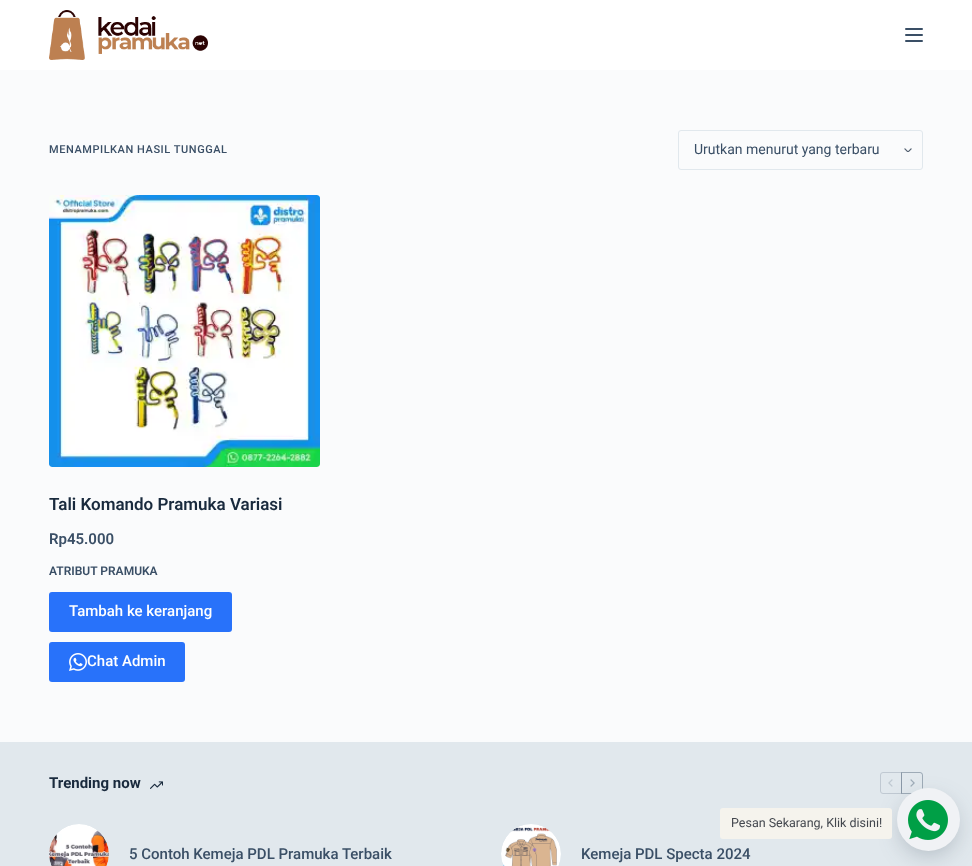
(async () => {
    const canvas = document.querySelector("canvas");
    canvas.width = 972;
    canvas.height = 866;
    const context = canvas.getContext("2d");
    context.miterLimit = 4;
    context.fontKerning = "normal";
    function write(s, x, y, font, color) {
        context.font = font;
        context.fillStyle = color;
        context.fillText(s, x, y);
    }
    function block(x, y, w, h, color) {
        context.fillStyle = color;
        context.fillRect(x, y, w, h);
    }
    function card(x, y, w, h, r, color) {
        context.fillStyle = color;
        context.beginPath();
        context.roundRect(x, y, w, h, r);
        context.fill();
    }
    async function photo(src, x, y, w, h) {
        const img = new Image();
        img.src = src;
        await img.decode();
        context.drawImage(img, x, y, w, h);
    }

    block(0, 0, 972, 866, "rgb(250, 251, 252)");
    block(0, 0, 972, 70, "rgb(255, 255, 255)");
    await photo("media/1.png", 49, 10, 159, 50);
    card(905, 28, 18, 2, 1, "rgb(58, 79, 102)");
    card(905, 34, 18, 2, 1, "rgb(58, 79, 102)");
    card(905, 40, 18, 2, 1, "rgb(58, 79, 102)");
    context.letterSpacing = "0.55px";
    write("MENAMPILKAN HASIL TUNGGAL", 49, 153, "500 11px Roboto", "rgb(58, 79, 102)");
    await photo("media/2.png", 904, 148, 8, 4);
    context.beginPath();
    context.roundRect(678.5, 130.5, 244, 39, 2.5);
    context.strokeStyle = "rgb(225, 232, 237)";
    context.stroke();
    context.letterSpacing = "0px";
    write("Urutkan menurut yang terbaru", 694, 154, "14px Roboto", "rgb(58, 79, 102)");
    await photo("media/3.png", 49, 195, 271, 272);
    write("Tali Komando Pramuka Variasi", 49, 510, "600 17px Roboto", "rgb(25, 42, 61)");
    write("Rp45.000", 49, 544, "600 15px Roboto", "rgb(58, 79, 102)");
    write("ATRIBUT PRAMUKA", 49, 575, "600 12px Roboto", "rgb(58, 79, 102)");
    card(49, 592, 183, 40, 3, "rgb(40, 114, 250)");
    write("Tambah ke keranjang", 69, 616, "500 15px Roboto", "rgb(255, 255, 255)");
    card(49, 642, 136, 40, 3, "rgb(40, 114, 250)");
    await photo("media/4.png", 69, 653, 18, 18);
    write("Chat Admin", 87, 666, "500 15px Roboto", "rgb(255, 255, 255)");
    block(0, 742, 972, 124, "rgb(225, 232, 237)");
    write("Trending now", 49, 788, "bold 15px Roboto", "rgb(25, 42, 61)");
    await photo("media/5.png", 150, 781, 13, 8);
    context.beginPath();
    context.roundRect(880.5, 772.5, 21, 21, [2.5, 0, 0, 2.5]);
    context.strokeStyle = "rgb(192, 201, 210)";
    context.stroke();
    await photo("media/6.png", 888, 779, 5, 8);
    context.beginPath();
    context.roundRect(901.5, 772.5, 21, 21, [0, 2.5, 2.5, 0]);
    context.strokeStyle = "rgba(58, 79, 102, 0.4)";
    context.stroke();
    await photo("media/7.png", 910, 779, 5, 8);
    await photo("media/8.png", 49, 824, 60, 42);
    write("5 Contoh Kemeja PDL Pramuka Terbaik", 129, 859, "500 15px Roboto", "rgb(58, 79, 102)");
    await photo("media/9.png", 501, 824, 60, 42);
    write("Kemeja PDL Specta 2024", 581, 859, "500 15px Roboto", "rgb(58, 79, 102)");
    context.fillStyle = "rgba(45, 62, 79, 0.3)";
    context.filter = "blur(12.5px)";
    context.beginPath();
    context.roundRect(902, 801, 53, 53, 26.5);
    context.fill();
    context.filter = "none";
    context.fillStyle = "rgb(240, 242, 245)";
    context.beginPath();
    context.arc(928.5, 819.5, 31.5, 0, Math.PI * 2);
    context.fill();
    card(720, 808, 172, 31, 3, "rgb(245, 243, 237)");
    write("Pesan Sekarang, Klik disini!", 731, 827, "12.5px Roboto", "rgb(67, 71, 78)");
    await photo("media/10.png", 908, 800, 40, 40);
})();
